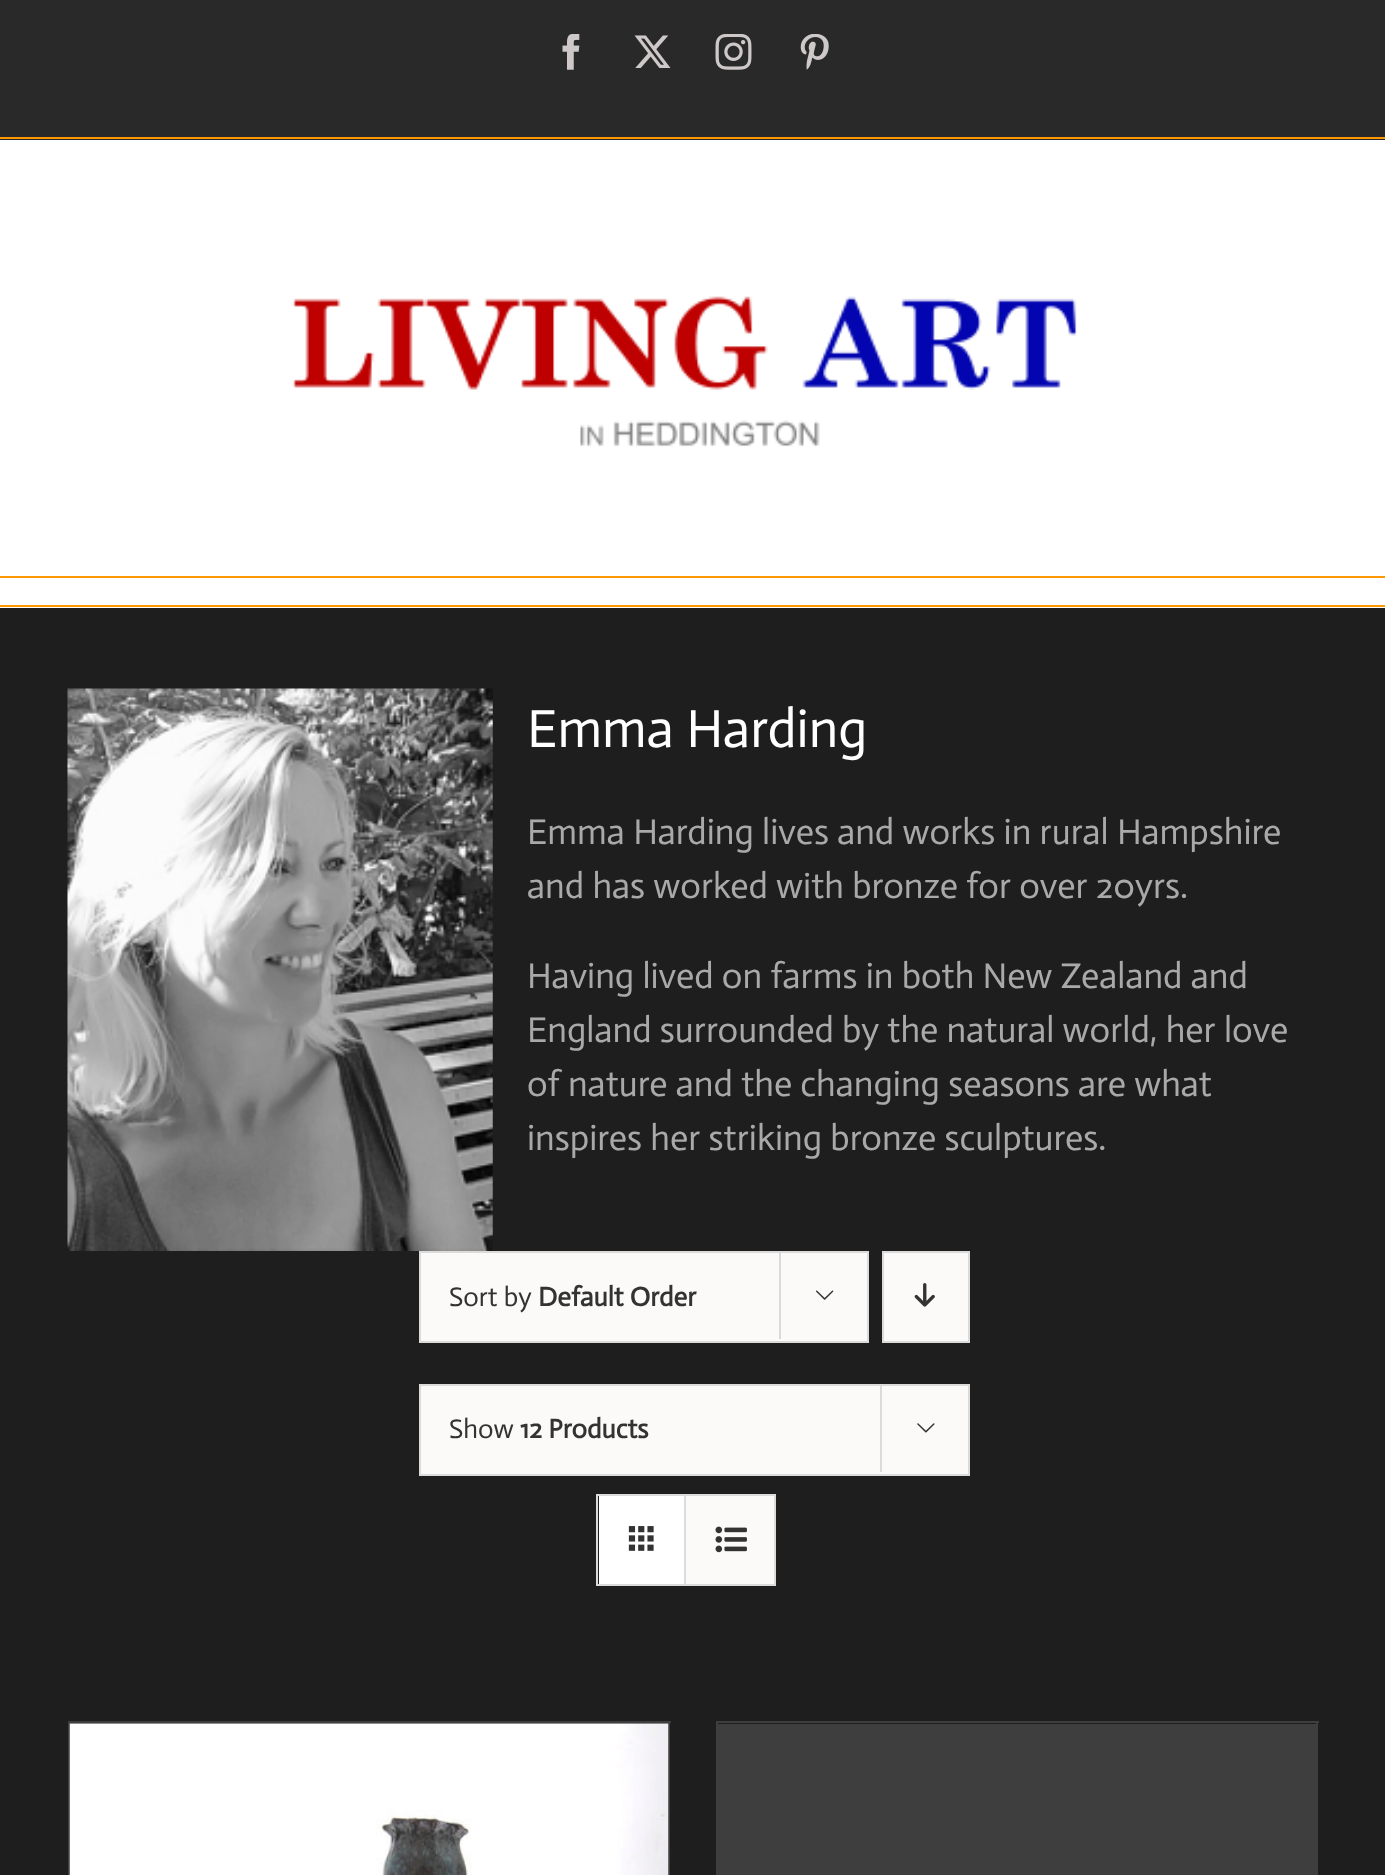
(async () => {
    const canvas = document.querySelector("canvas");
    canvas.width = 1385;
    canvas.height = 1875;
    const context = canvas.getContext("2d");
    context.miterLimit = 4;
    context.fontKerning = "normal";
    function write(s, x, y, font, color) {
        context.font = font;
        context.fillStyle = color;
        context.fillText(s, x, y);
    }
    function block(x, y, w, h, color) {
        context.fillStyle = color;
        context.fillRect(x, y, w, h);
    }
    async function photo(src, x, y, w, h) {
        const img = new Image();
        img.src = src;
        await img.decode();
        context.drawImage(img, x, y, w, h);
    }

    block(0, 0, 1385, 1875, "rgb(30, 30, 30)");
    block(0, 0, 1385, 140, "rgb(41, 41, 42)");
    block(0, 137, 1385, 2, "rgb(255, 152, 0)");
    await photo("media/1.png", 562, 34, 18, 36);
    await photo("media/2.png", 634, 35, 37, 33);
    await photo("media/3.png", 715, 34, 37, 36);
    await photo("media/4.png", 800, 34, 29, 36);
    block(0, 140, 1385, 436, "rgb(255, 255, 255)");
    block(0, 576, 1385, 2, "rgb(255, 152, 0)");
    await photo("media/5.png", 292, 296, 785, 151);
    block(0, 578, 1385, 30, "rgb(255, 255, 255)");
    block(0, 605, 1385, 2, "rgb(255, 152, 0)");
    await photo("media/6.png", 67, 688, 426, 563);
    write("Emma Harding", 527, 747, "54px Actor", "rgb(255, 255, 255)");
    write("Emma Harding lives and works in rural Hampshire", 527, 844, "36px Actor", "rgb(170, 169, 169)");
    write("and has worked with bronze for over 20yrs.", 527, 898, "36px Actor", "rgb(170, 169, 169)");
    write("Having lived on farms in both New Zealand and", 527, 988, "36px Actor", "rgb(170, 169, 169)");
    write("England surrounded by the natural world, her love", 527, 1042, "36px Actor", "rgb(170, 169, 169)");
    write("of nature and the changing seasons are what", 527, 1096, "36px Actor", "rgb(170, 169, 169)");
    write("inspires her striking bronze sculptures.", 527, 1150, "36px Actor", "rgb(170, 169, 169)");
    context.fillStyle = "rgb(251, 250, 249)";
    context.beginPath();
    context.rect(420, 1252, 448, 90);
    context.fill();
    context.strokeStyle = "rgb(219, 219, 219)";
    context.lineWidth = 2;
    context.stroke();
    write("Sort by", 449, 1306, "27px Actor", "rgb(51, 51, 51)");
    write("Default Order", 538, 1306, "bold 27px Actor", "rgb(51, 51, 51)");
    block(779, 1251, 2, 88, "rgb(219, 219, 219)");
    await photo("media/7.png", 816, 1290, 18, 10);
    context.fillStyle = "rgb(251, 250, 249)";
    context.beginPath();
    context.rect(883, 1252, 86, 90);
    context.fill();
    context.stroke();
    await photo("media/8.png", 914, 1283, 21, 24);
    context.beginPath();
    context.rect(420, 1385, 549, 90);
    context.fill();
    context.stroke();
    write("Show", 449, 1438, "27px Actor", "rgb(51, 51, 51)");
    write("12 Products", 520, 1438, "bold 27px Actor", "rgb(51, 51, 51)");
    block(880, 1384, 2, 88, "rgb(219, 219, 219)");
    await photo("media/9.png", 917, 1423, 18, 10);
    context.strokeRect(597, 1495, 178, 90);
    block(599, 1496, 85, 88, "rgb(255, 255, 255)");
    block(684, 1496, 2, 88, "rgb(219, 219, 219)");
    await photo("media/10.png", 628, 1526, 26, 25);
    block(686, 1496, 88, 88, "rgb(251, 250, 249)");
    await photo("media/11.png", 715, 1526, 32, 27);
    block(68, 1721, 603, 2, "rgb(62, 62, 62)");
    block(668, 1721, 2, 154, "rgb(62, 62, 62)");
    block(68, 1721, 2, 154, "rgb(62, 62, 62)");
    await photo("media/12.png", 69, 1723, 600, 152);
    block(716, 1721, 603, 2, "rgb(62, 62, 62)");
    block(1316, 1721, 2, 154, "rgb(62, 62, 62)");
    block(716, 1721, 2, 154, "rgb(62, 62, 62)");
    block(718, 1724, 598, 151, "rgb(62, 62, 62)");
})();
